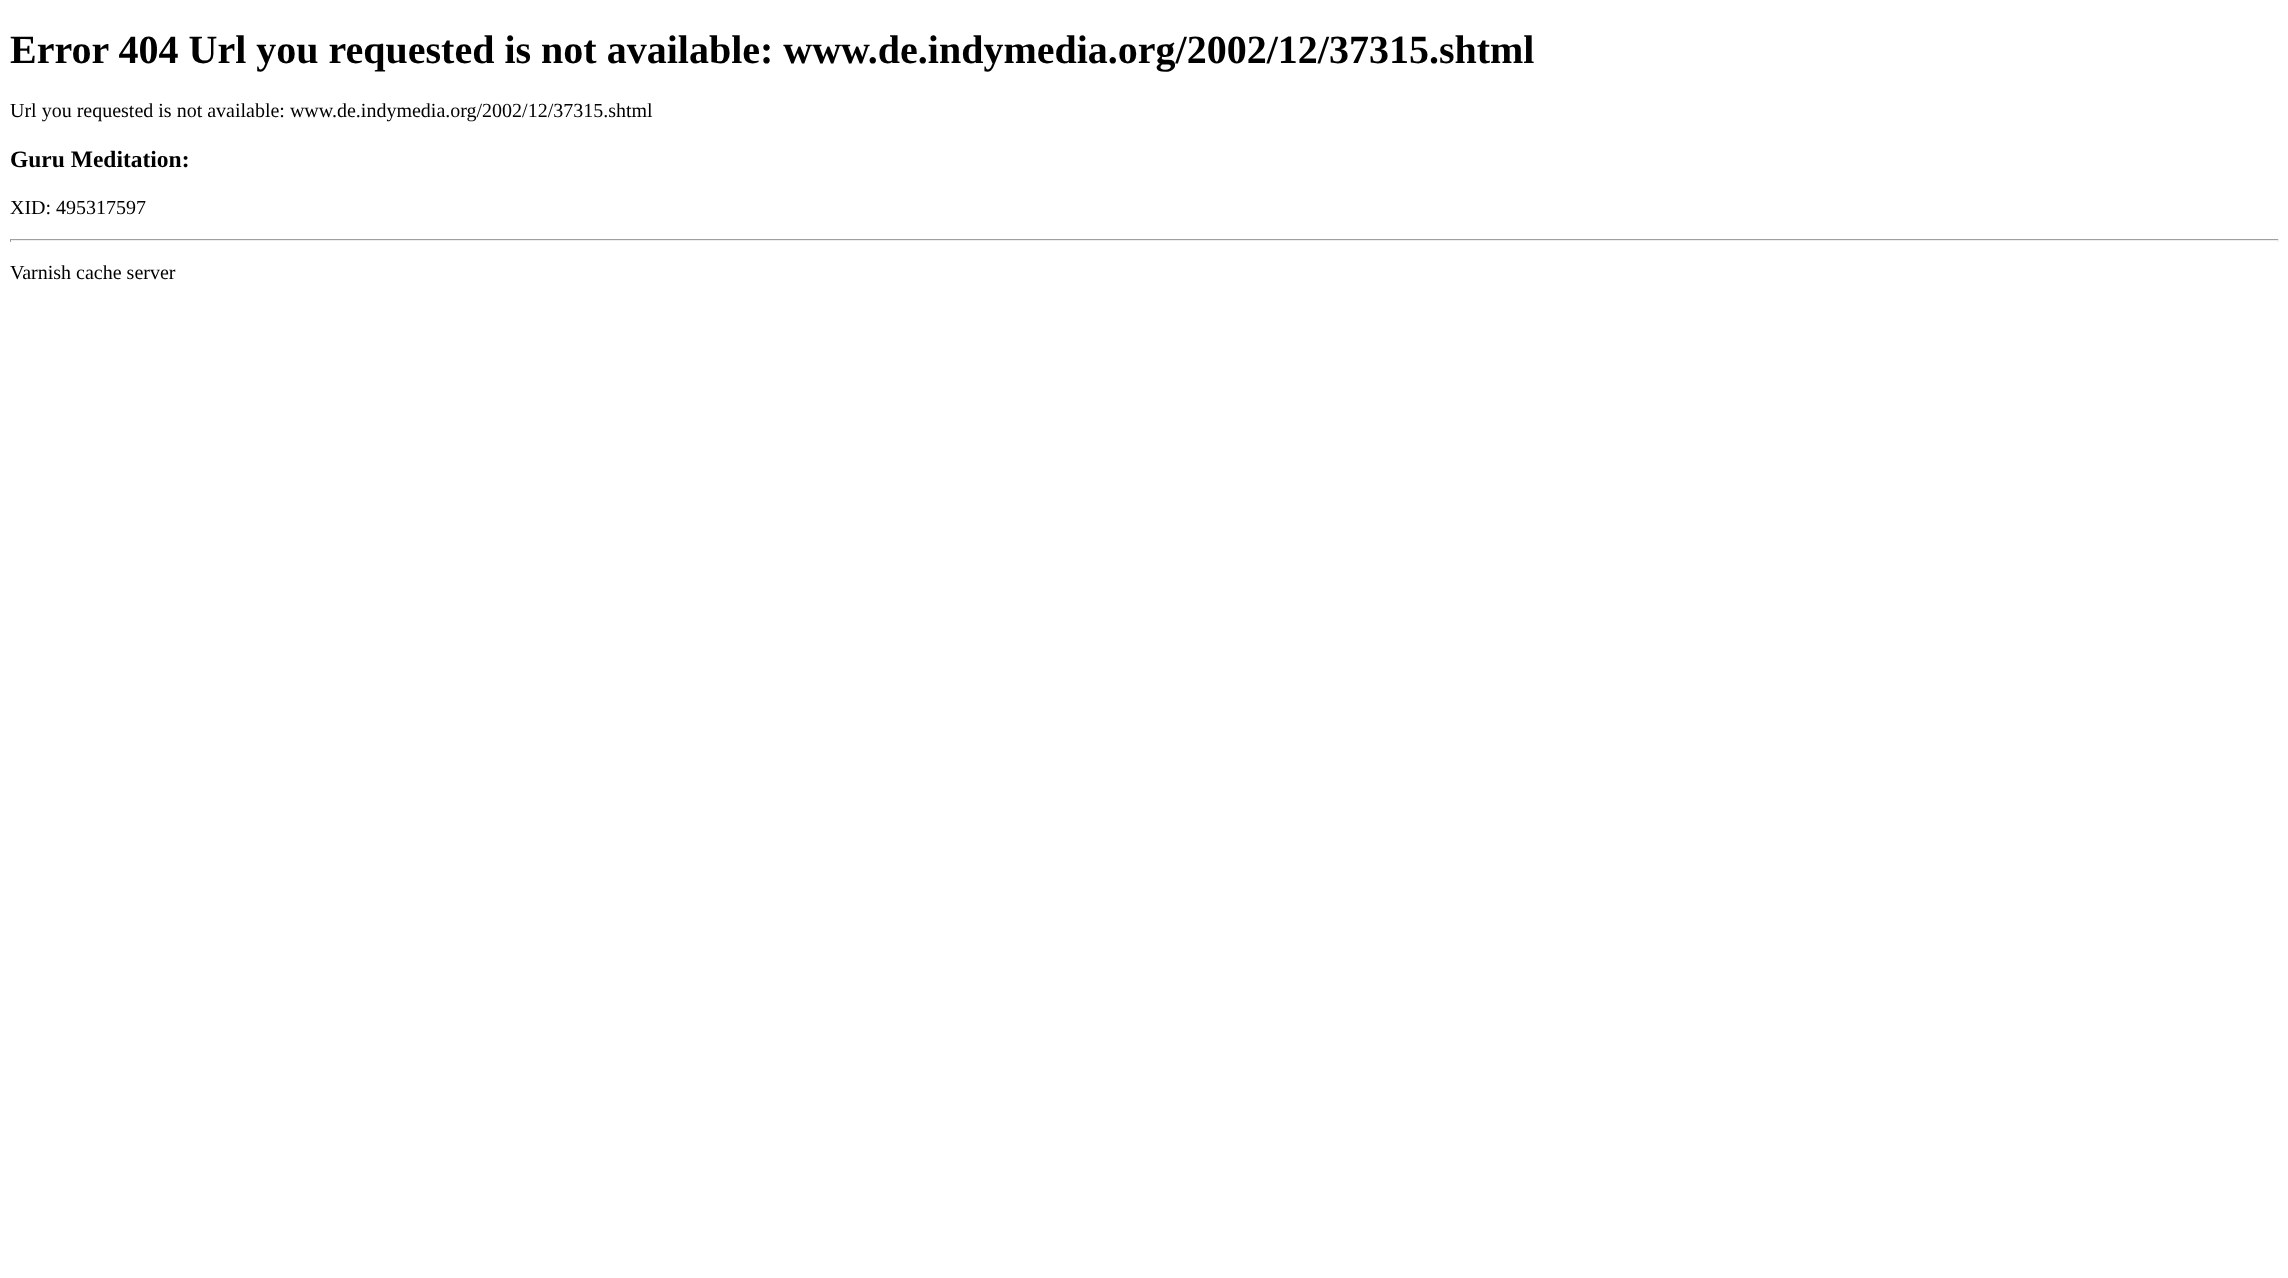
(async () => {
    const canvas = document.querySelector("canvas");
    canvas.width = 2288;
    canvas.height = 1278;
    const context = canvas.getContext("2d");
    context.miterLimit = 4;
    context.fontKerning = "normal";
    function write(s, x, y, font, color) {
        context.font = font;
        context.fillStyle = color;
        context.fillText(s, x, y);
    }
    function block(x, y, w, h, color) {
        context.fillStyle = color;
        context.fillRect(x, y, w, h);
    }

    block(0, 0, 2288, 1278, "rgb(255, 255, 255)");
    write("Error 404 Url you requested is not available: www.de.indymedia.org/2002/12/37315.shtml", 10, 63, "bold 40px Liberation Serif", "rgb(0, 0, 0)");
    write("Url you requested is not available: www.de.indymedia.org/2002/12/37315.shtml", 10, 117, "20px Liberation Serif", "rgb(0, 0, 0)");
    write("Guru Meditation:", 10, 167, "bold 23.5px Liberation Serif", "rgb(0, 0, 0)");
    write("XID: 495317597", 10, 214, "20px Liberation Serif", "rgb(0, 0, 0)");
    block(10, 239, 2269, 1, "rgb(159, 159, 159)");
    block(2278, 239, 1, 3, "rgb(238, 238, 238)");
    block(10, 240, 2269, 1, "rgb(238, 238, 238)");
    block(10, 239, 1, 3, "rgb(159, 159, 159)");
    write("Varnish cache server", 10, 279, "20px Liberation Serif", "rgb(0, 0, 0)");
})();
